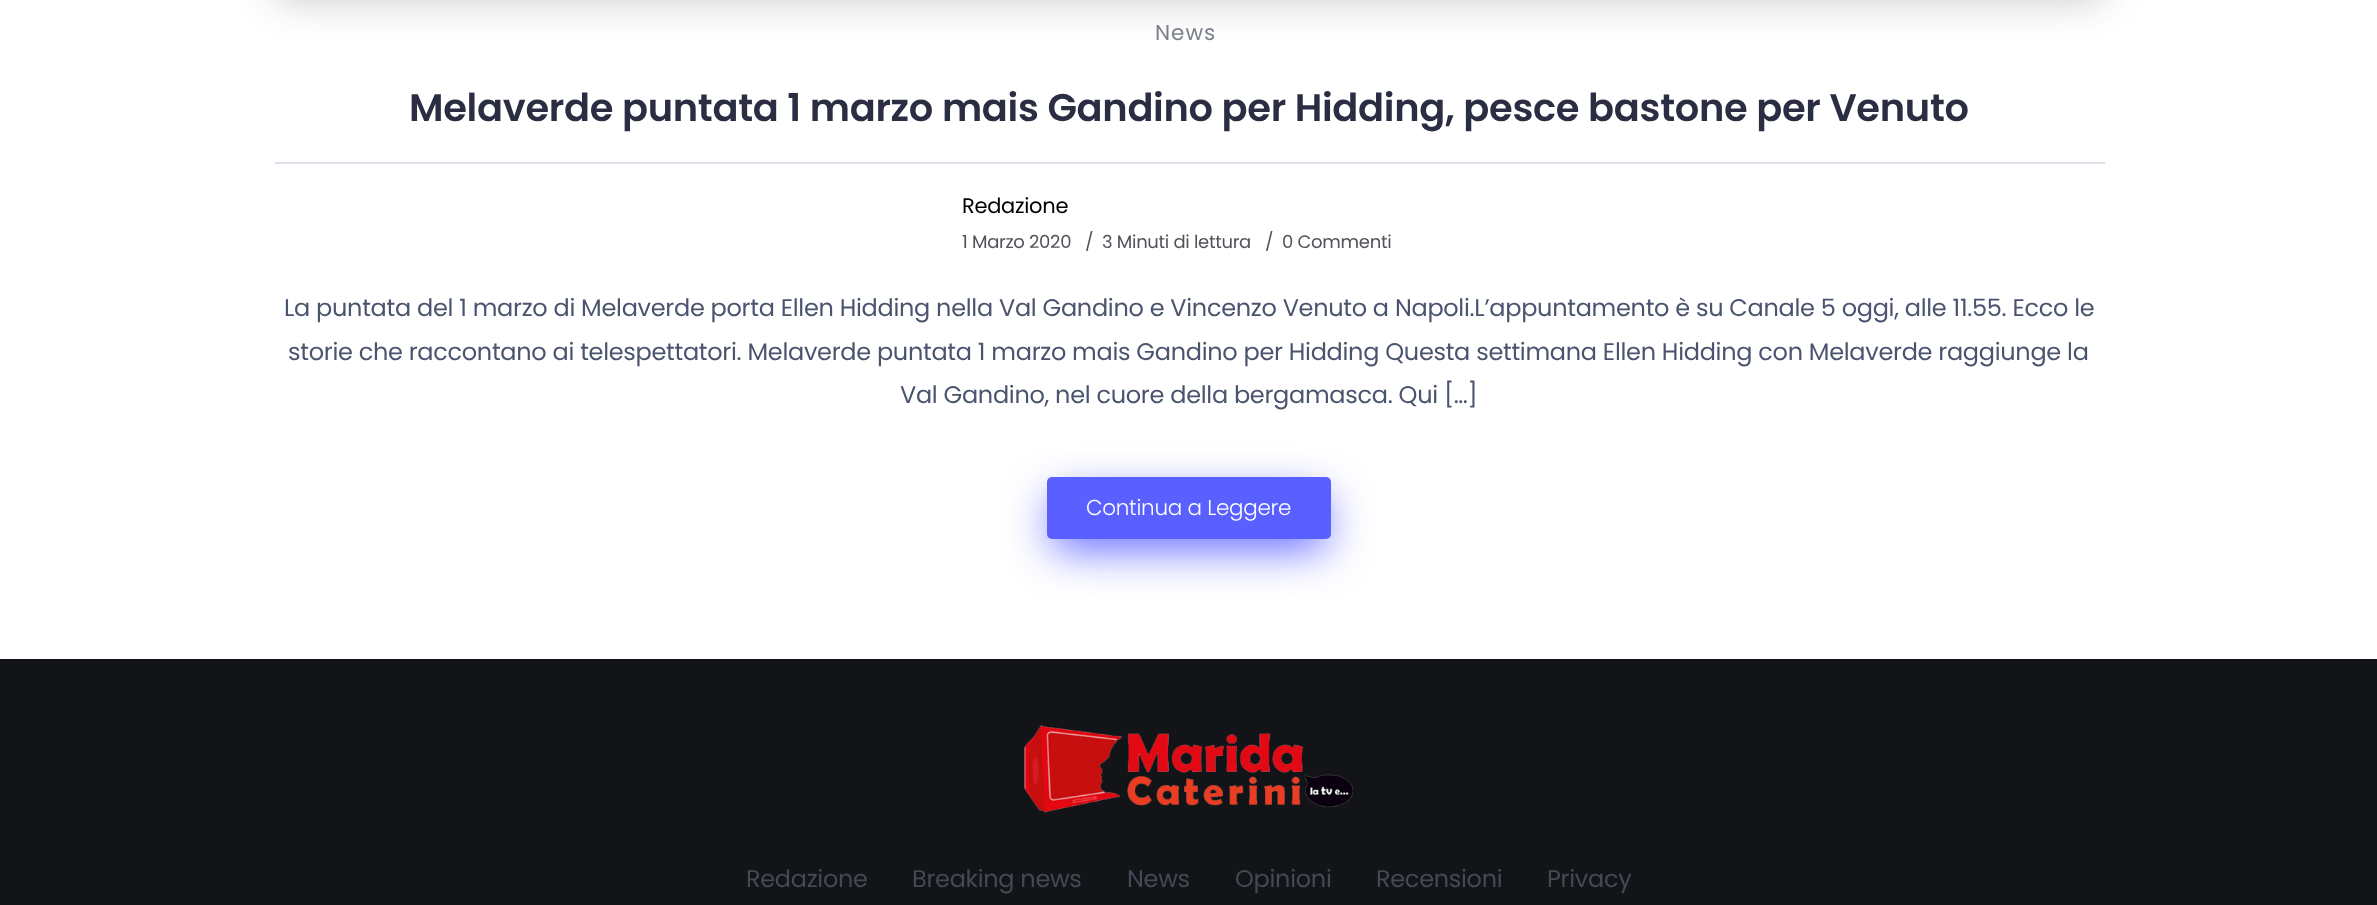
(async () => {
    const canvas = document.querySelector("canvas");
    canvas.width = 2377;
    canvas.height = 905;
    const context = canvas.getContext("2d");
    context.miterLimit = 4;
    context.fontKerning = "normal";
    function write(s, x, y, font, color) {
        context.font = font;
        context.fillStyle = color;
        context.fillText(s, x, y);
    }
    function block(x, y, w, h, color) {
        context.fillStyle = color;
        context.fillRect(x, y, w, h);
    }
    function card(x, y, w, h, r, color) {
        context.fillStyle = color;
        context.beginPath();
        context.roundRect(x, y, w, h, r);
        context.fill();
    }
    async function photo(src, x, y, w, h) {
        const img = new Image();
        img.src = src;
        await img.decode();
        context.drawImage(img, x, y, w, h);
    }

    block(0, 0, 2377, 905, "rgb(255, 255, 255)");
    context.fillStyle = "rgba(23, 25, 32, 0.21)";
    context.filter = "blur(19px)";
    context.beginPath();
    context.roundRect(269, -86, 1842, 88, 29);
    context.fill();
    context.filter = "none";
    context.letterSpacing = "1px";
    write("News", 1155, 40, "21.5px Poppins", "rgb(124, 128, 139)");
    block(275, 162, 1830, 2, "rgb(223, 225, 234)");
    context.letterSpacing = "-0.3px";
    write("Melaverde puntata 1 marzo mais Gandino per Hidding, pesce bastone per Venuto", 409, 121, "600 38.4px Poppins", "rgb(43, 45, 66)");
    write("Redazione", 962, 213, "21px Poppins", "rgb(0, 0, 0)");
    write("1 Marzo 2020", 962, 248, "18px Poppins", "rgb(81, 83, 90)");
    write("/", 1085, 248, "18px Poppins", "rgb(81, 83, 90)");
    write("3 Minuti di lettura", 1102, 248, "18px Poppins", "rgb(81, 83, 90)");
    write("/", 1265, 248, "18px Poppins", "rgb(81, 83, 90)");
    write("0 Commenti", 1282, 248, "18px Poppins", "rgb(81, 83, 90)");
    write("La puntata del 1 marzo di Melaverde porta Ellen Hidding nella Val Gandino e Vincenzo Venuto a Napoli.L’appuntamento è su Canale 5 oggi, alle 11.55. Ecco le", 284, 316, "24px Poppins", "rgb(75, 84, 110)");
    write("storie che raccontano ai telespettatori. Melaverde puntata 1 marzo mais Gandino per Hidding Questa settimana Ellen Hidding con Melaverde raggiunge la", 288, 360, "24px Poppins", "rgb(75, 84, 110)");
    write("Val Gandino, nel cuore della bergamasca. Qui […]", 900, 403, "24px Poppins", "rgb(75, 84, 110)");
    context.fillStyle = "rgb(89, 96, 255)";
    context.filter = "blur(22.5px)";
    context.beginPath();
    context.rect(1053, 498, 272, 50);
    context.fill();
    context.filter = "none";
    card(1047, 477, 284, 62, 5, "rgb(89, 96, 255)");
    write("Continua a Leggere", 1086, 515, "300 21.5px Poppins", "rgb(255, 255, 255)");
    block(0, 659, 2377, 246, "rgb(18, 20, 24)");
    await photo("media/1.png", 1024, 725, 329, 88);
    write("Redazione", 746, 887, "24px Poppins", "rgb(69, 73, 85)");
    write("Breaking news", 912, 887, "24px Poppins", "rgb(69, 73, 85)");
    write("News", 1127, 887, "24px Poppins", "rgb(69, 73, 85)");
    write("Opinioni", 1235, 887, "24px Poppins", "rgb(69, 73, 85)");
    write("Recensioni", 1376, 887, "24px Poppins", "rgb(69, 73, 85)");
    write("Privacy", 1547, 887, "24px Poppins", "rgb(69, 73, 85)");
})();
